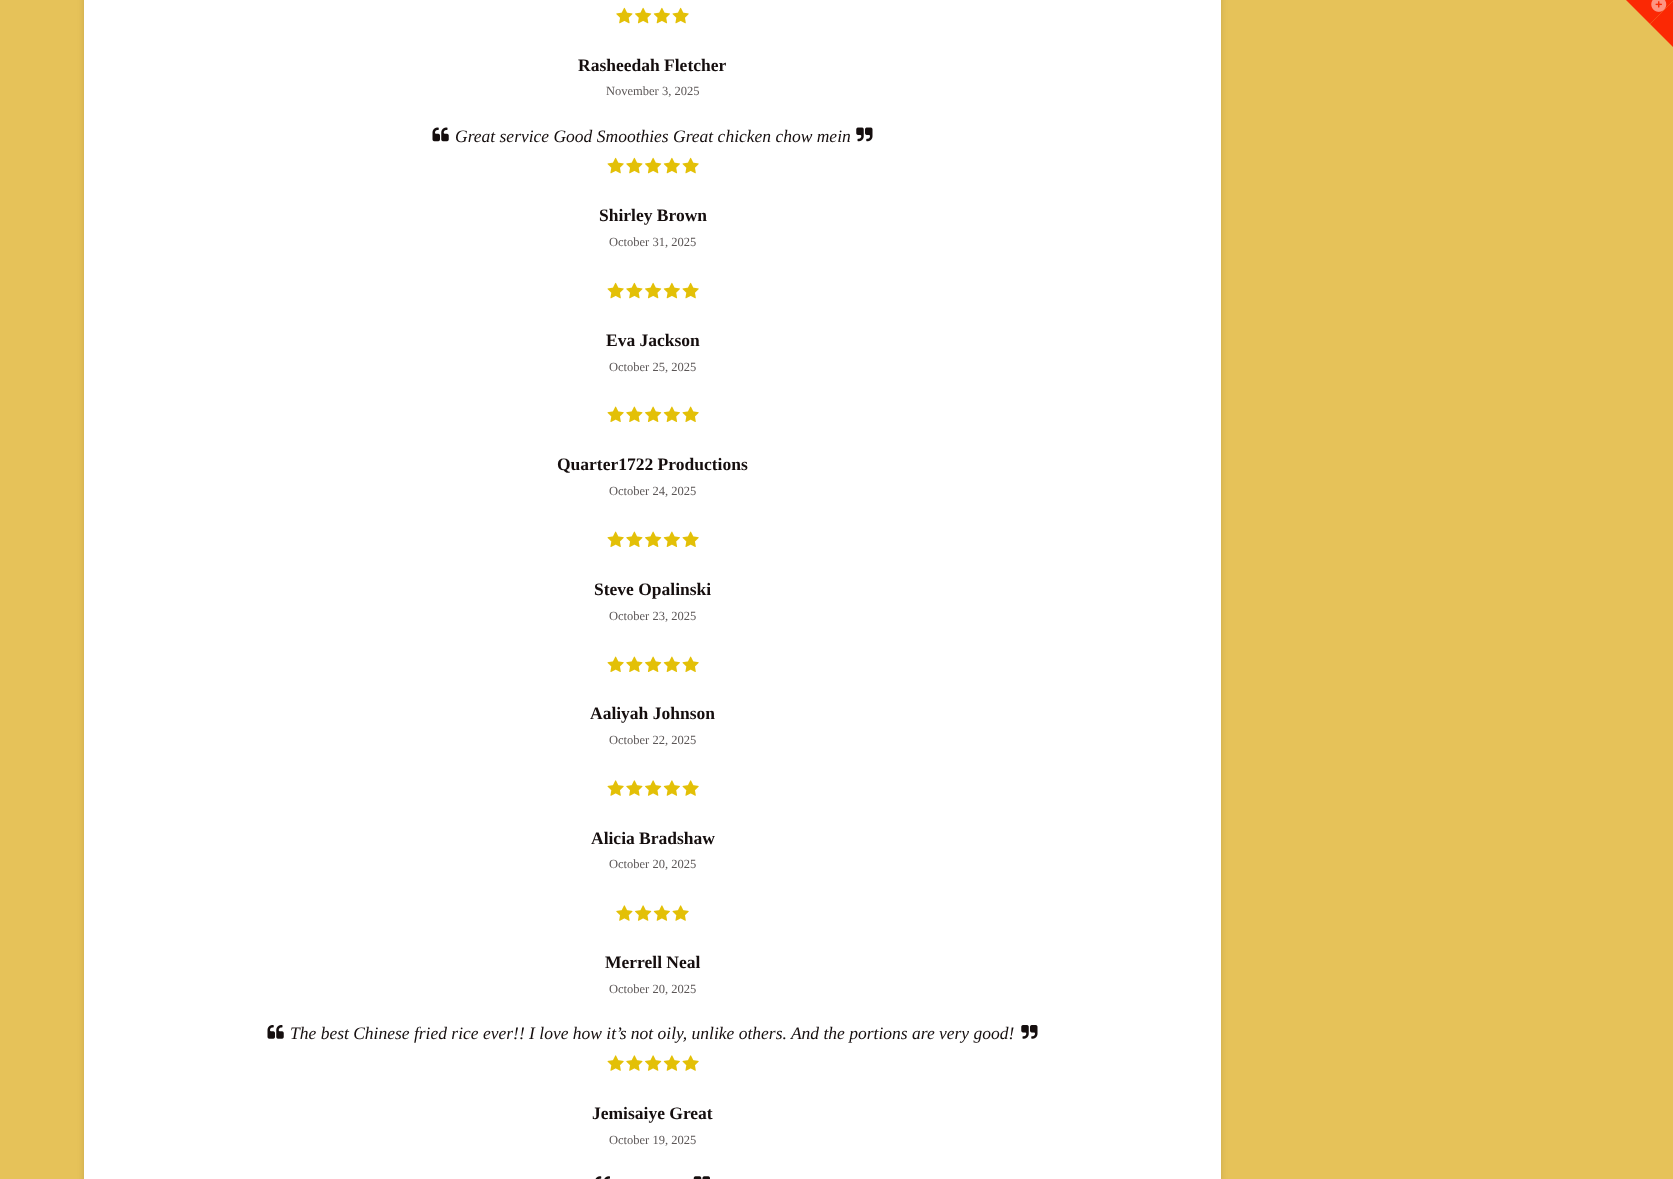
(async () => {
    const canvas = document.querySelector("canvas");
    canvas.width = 1673;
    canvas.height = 1179;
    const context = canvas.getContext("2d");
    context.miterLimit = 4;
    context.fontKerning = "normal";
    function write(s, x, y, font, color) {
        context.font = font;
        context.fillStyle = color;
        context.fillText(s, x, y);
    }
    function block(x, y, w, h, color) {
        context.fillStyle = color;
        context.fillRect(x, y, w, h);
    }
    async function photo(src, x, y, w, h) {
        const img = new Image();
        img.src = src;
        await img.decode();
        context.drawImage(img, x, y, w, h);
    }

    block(0, 0, 1673, 1179, "rgb(230, 194, 89)");
    context.fillStyle = "rgb(251, 40, 4)";
    context.beginPath();
    context.moveTo(1626, 0);
    context.lineTo(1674, 0);
    context.lineTo(1650, 24);
    context.closePath();
    context.fill();
    context.beginPath();
    context.moveTo(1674, 0);
    context.lineTo(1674, 48);
    context.lineTo(1650, 24);
    context.closePath();
    context.fill();
    await photo("media/1.png", 1651, 0, 16, 12);
    context.fillStyle = "rgba(0, 0, 0, 0.13)";
    context.filter = "blur(3px)";
    context.beginPath();
    context.roundRect(84, -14, 1137, 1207, 5);
    context.fill();
    context.filter = "none";
    block(84, 0, 1137, 1179, "rgb(255, 255, 255)");
    await photo("media/2.png", 616, 7, 17, 17);
    await photo("media/3.png", 635, 7, 17, 17);
    await photo("media/4.png", 653, 7, 17, 17);
    await photo("media/5.png", 672, 7, 17, 17);
    write("Rasheedah Fletcher", 578, 71, "bold 17.5px Liberation Serif", "rgb(21, 14, 14)");
    write("November 3, 2025", 606, 95, "12.5px Liberation Serif", "rgb(91, 86, 86)");
    await photo("media/6.png", 432, 127, 17, 15);
    write("Great service Good Smoothies Great chicken chow mein", 455, 142, "italic 17.5px Liberation Serif", "rgb(21, 14, 14)");
    await photo("media/7.png", 856, 127, 17, 15);
    await photo("media/5.png", 607, 157, 17, 17);
    await photo("media/2.png", 626, 157, 17, 17);
    await photo("media/3.png", 645, 157, 17, 17);
    await photo("media/4.png", 663, 157, 17, 17);
    await photo("media/5.png", 682, 157, 17, 17);
    write("Shirley Brown", 599, 221, "bold 17.5px Liberation Serif", "rgb(21, 14, 14)");
    write("October 31, 2025", 609, 246, "12.5px Liberation Serif", "rgb(91, 86, 86)");
    await photo("media/5.png", 607, 282, 17, 17);
    await photo("media/2.png", 626, 282, 17, 17);
    await photo("media/3.png", 645, 282, 17, 17);
    await photo("media/4.png", 663, 282, 17, 17);
    await photo("media/5.png", 682, 282, 17, 17);
    write("Eva Jackson", 606, 346, "bold 17.5px Liberation Serif", "rgb(21, 14, 14)");
    write("October 25, 2025", 609, 371, "12.5px Liberation Serif", "rgb(91, 86, 86)");
    await photo("media/8.png", 607, 406, 17, 16);
    await photo("media/9.png", 626, 406, 17, 16);
    await photo("media/10.png", 645, 406, 17, 16);
    await photo("media/11.png", 663, 406, 17, 16);
    await photo("media/8.png", 682, 406, 17, 16);
    write("Quarter1722 Productions", 557, 470, "bold 17.5px Liberation Serif", "rgb(21, 14, 14)");
    write("October 24, 2025", 609, 495, "12.5px Liberation Serif", "rgb(91, 86, 86)");
    await photo("media/8.png", 607, 531, 17, 16);
    await photo("media/9.png", 626, 531, 17, 16);
    await photo("media/10.png", 645, 531, 17, 16);
    await photo("media/11.png", 663, 531, 17, 16);
    await photo("media/8.png", 682, 531, 17, 16);
    write("Steve Opalinski", 594, 595, "bold 17.5px Liberation Serif", "rgb(21, 14, 14)");
    write("October 23, 2025", 609, 620, "12.5px Liberation Serif", "rgb(91, 86, 86)");
    await photo("media/8.png", 607, 656, 17, 16);
    await photo("media/9.png", 626, 656, 17, 16);
    await photo("media/10.png", 645, 656, 17, 16);
    await photo("media/11.png", 663, 656, 17, 16);
    await photo("media/8.png", 682, 656, 17, 16);
    write("Aaliyah Johnson", 590, 719, "bold 17.5px Liberation Serif", "rgb(21, 14, 14)");
    write("October 22, 2025", 609, 744, "12.5px Liberation Serif", "rgb(91, 86, 86)");
    await photo("media/12.png", 607, 780, 17, 16);
    await photo("media/13.png", 626, 780, 17, 16);
    await photo("media/14.png", 645, 780, 17, 16);
    await photo("media/15.png", 663, 780, 17, 16);
    await photo("media/12.png", 682, 780, 17, 16);
    write("Alicia Bradshaw", 591, 844, "bold 17.5px Liberation Serif", "rgb(21, 14, 14)");
    write("October 20, 2025", 609, 868, "12.5px Liberation Serif", "rgb(91, 86, 86)");
    await photo("media/13.png", 616, 905, 17, 16);
    await photo("media/14.png", 635, 905, 17, 16);
    await photo("media/15.png", 653, 905, 17, 16);
    await photo("media/12.png", 672, 905, 17, 16);
    write("Merrell Neal", 605, 968, "bold 17.5px Liberation Serif", "rgb(21, 14, 14)");
    write("October 20, 2025", 609, 993, "12.5px Liberation Serif", "rgb(91, 86, 86)");
    await photo("media/16.png", 267, 1025, 17, 14);
    write("The best Chinese fried rice ever!! I love how it’s not oily, unlike others. And the portions are very good!", 290, 1039, "italic 17.5px Liberation Serif", "rgb(21, 14, 14)");
    await photo("media/17.png", 1021, 1025, 17, 14);
    await photo("media/12.png", 607, 1055, 17, 16);
    await photo("media/13.png", 626, 1055, 17, 16);
    await photo("media/14.png", 645, 1055, 17, 16);
    await photo("media/15.png", 663, 1055, 17, 16);
    await photo("media/12.png", 682, 1055, 17, 16);
    write("Jemisaiye Great", 592, 1119, "bold 17.5px Liberation Serif", "rgb(21, 14, 14)");
    write("October 19, 2025", 609, 1144, "12.5px Liberation Serif", "rgb(91, 86, 86)");
    await photo("media/18.png", 595, 1176, 15, 3);
    await photo("media/19.png", 693, 1176, 17, 3);
})();
